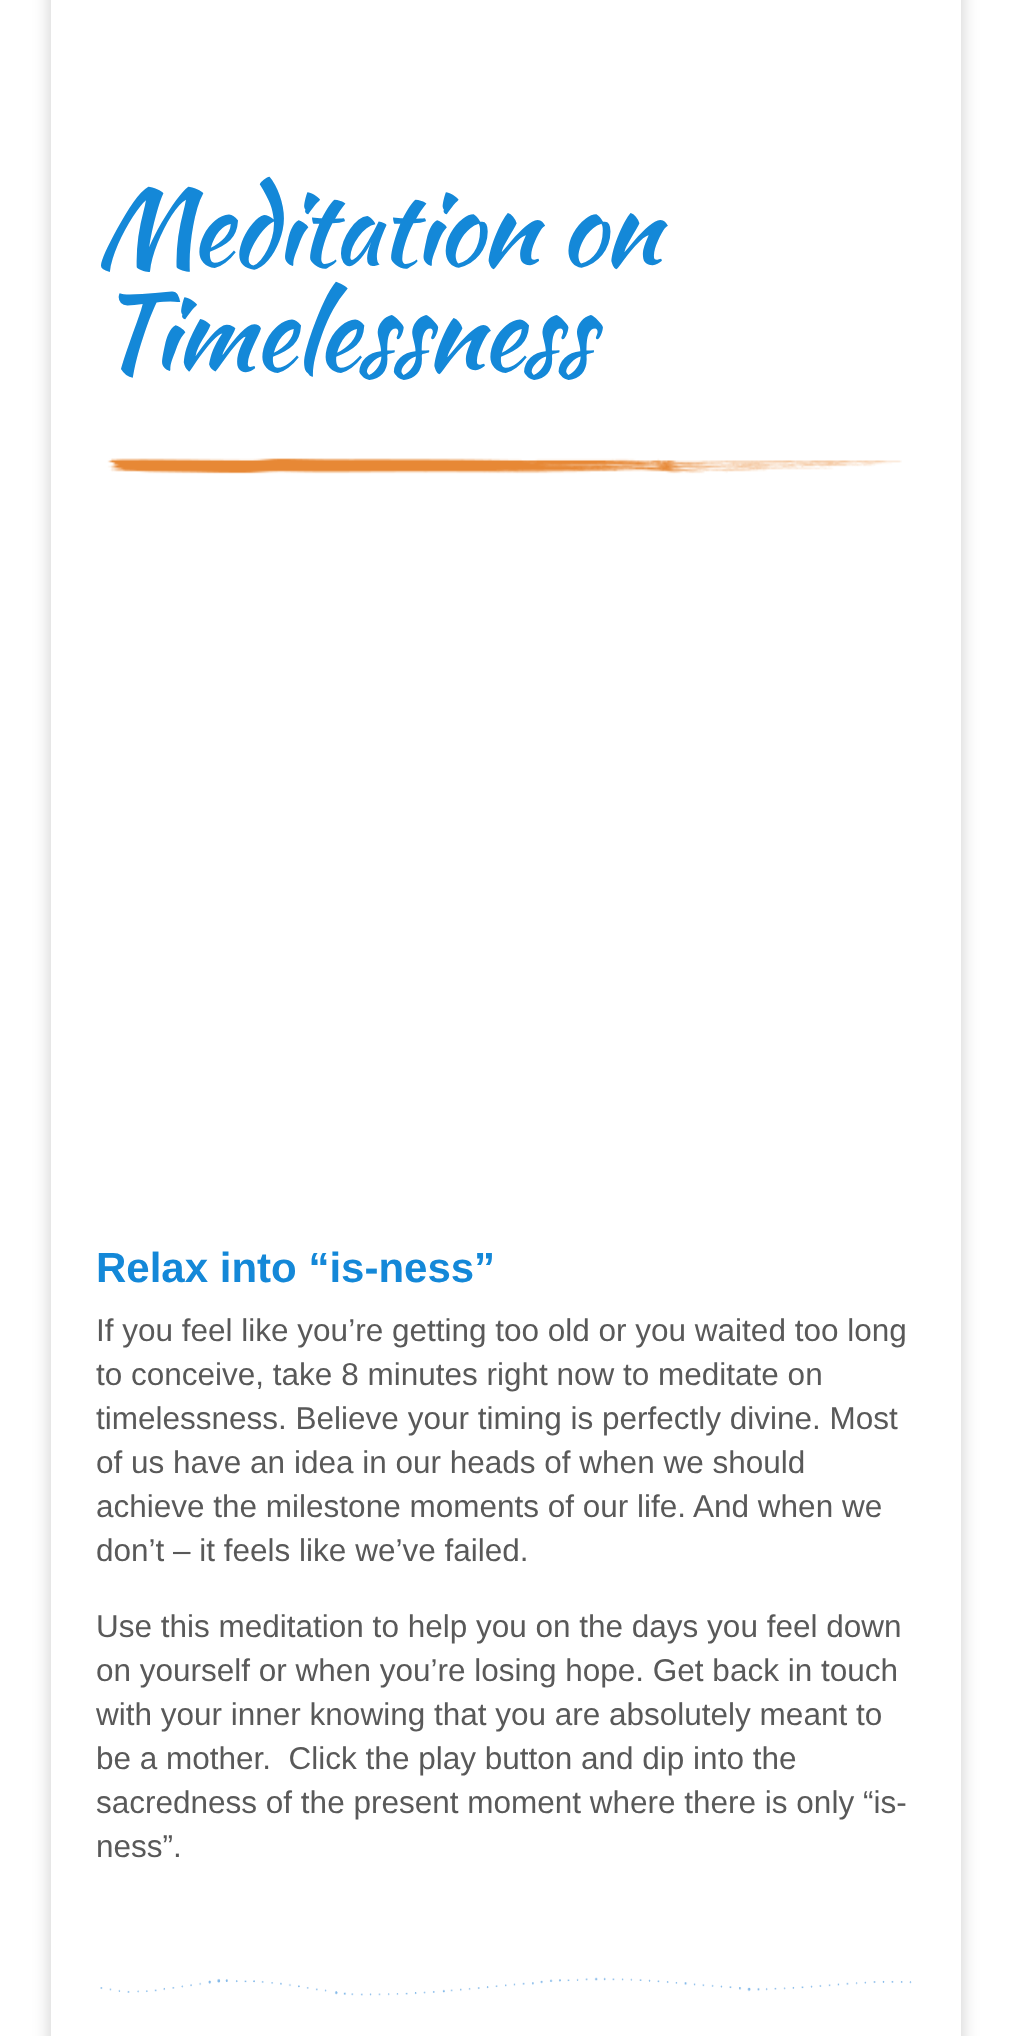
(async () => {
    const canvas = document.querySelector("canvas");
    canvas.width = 1011;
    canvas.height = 2036;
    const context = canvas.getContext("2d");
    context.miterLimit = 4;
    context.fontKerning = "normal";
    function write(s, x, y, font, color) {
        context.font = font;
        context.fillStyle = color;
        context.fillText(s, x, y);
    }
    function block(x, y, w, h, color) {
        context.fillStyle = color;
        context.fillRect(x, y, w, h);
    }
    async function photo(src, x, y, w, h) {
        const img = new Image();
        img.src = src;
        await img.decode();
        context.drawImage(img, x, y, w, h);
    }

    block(0, 0, 1011, 2036, "rgb(255, 255, 255)");
    context.fillStyle = "rgba(0, 0, 0, 0.2)";
    context.filter = "blur(9px)";
    context.beginPath();
    context.rect(51, -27, 910, 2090);
    context.fill();
    context.filter = "none";
    block(51, 0, 910, 2036, "rgb(255, 255, 255)");
    context.letterSpacing = "-1.75px";
    write("Meditation on", 96, 264, "105px Kaushan Script", "rgb(20, 136, 216)");
    write("Timelessness", 96, 369, "105px Kaushan Script", "rgb(20, 136, 216)");
    await photo("media/1.png", 107, 458, 795, 16);
    context.letterSpacing = "0px";
    write("Relax into “is-ness”", 96, 1282, "bold 42px Liberation Sans", "rgb(20, 136, 216)");
    write("If you feel like you’re getting too old or you waited too long", 96, 1341, "31.5px Liberation Sans", "rgb(89, 89, 89)");
    write("to conceive, take 8 minutes right now to meditate on", 96, 1385, "31.5px Liberation Sans", "rgb(89, 89, 89)");
    write("timelessness. Believe your timing is perfectly divine. Most", 96, 1429, "31.5px Liberation Sans", "rgb(89, 89, 89)");
    write("of us have an idea in our heads of when we should", 96, 1473, "31.5px Liberation Sans", "rgb(89, 89, 89)");
    write("achieve the milestone moments of our life. And when we", 96, 1517, "31.5px Liberation Sans", "rgb(89, 89, 89)");
    write("don’t – it feels like we’ve failed.", 96, 1561, "31.5px Liberation Sans", "rgb(89, 89, 89)");
    write("Use this meditation to help you on the days you feel down", 96, 1637, "31.5px Liberation Sans", "rgb(89, 89, 89)");
    write("on yourself or when you’re losing hope. Get back in touch", 96, 1681, "31.5px Liberation Sans", "rgb(89, 89, 89)");
    write("with your inner knowing that you are absolutely meant to", 96, 1725, "31.5px Liberation Sans", "rgb(89, 89, 89)");
    write("be a mother.  Click the play button and dip into the", 96, 1769, "31.5px Liberation Sans", "rgb(89, 89, 89)");
    write("sacredness of the present moment where there is only “is-", 96, 1813, "31.5px Liberation Sans", "rgb(89, 89, 89)");
    write("ness”.", 96, 1857, "31.5px Liberation Sans", "rgb(89, 89, 89)");
    await photo("media/2.png", 100, 1977, 812, 19);
})();
